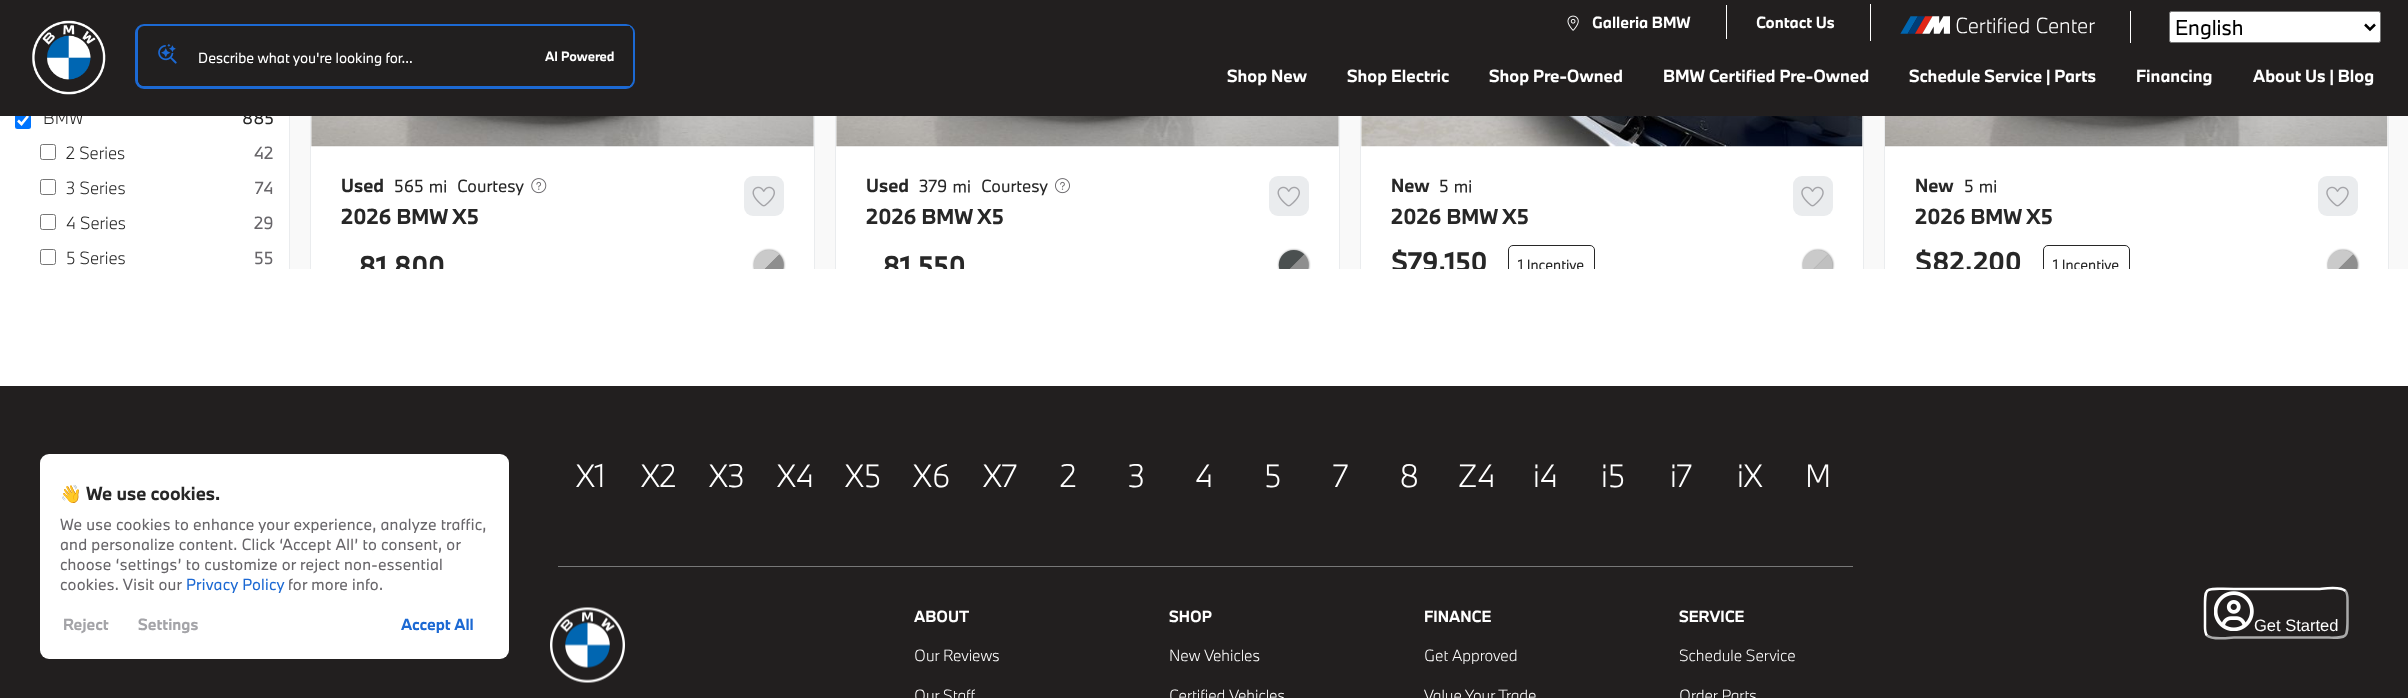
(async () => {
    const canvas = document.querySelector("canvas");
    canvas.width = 2408;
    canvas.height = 698;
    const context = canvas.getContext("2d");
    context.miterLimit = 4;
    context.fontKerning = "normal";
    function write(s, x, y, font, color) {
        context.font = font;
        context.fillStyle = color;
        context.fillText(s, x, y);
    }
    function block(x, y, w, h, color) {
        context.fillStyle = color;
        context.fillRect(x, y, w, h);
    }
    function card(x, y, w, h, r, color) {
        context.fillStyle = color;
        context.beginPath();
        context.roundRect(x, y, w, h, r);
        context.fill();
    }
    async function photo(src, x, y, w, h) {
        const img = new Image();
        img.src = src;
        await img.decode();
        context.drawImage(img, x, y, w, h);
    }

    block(0, 0, 2408, 698, "rgb(255, 255, 255)");
    card(15, 113, 16, 16, 2.5, "rgb(0, 117, 255)");
    context.beginPath();
    context.moveTo(18, 120.5);
    context.lineTo(21.5, 124);
    context.lineTo(28, 116);
    context.strokeStyle = "rgb(255, 255, 255)";
    context.lineWidth = 2.6;
    context.stroke();
    write("BMW", 43, 124, "300 16.25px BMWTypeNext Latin", "rgb(39, 39, 39)");
    write("885", 242, 124, "16.25px BMWTypeNext Latin", "rgb(39, 39, 39)");
    block(290, 116, 2118, 153, "rgb(249, 249, 249)");
    block(311, 116, 503, 153, "rgb(255, 255, 255)");
    block(0, 386, 2408, 312, "rgb(34, 31, 31)");
    block(558, 566, 1295, 1, "rgb(120, 120, 120)");
    await photo("media/19.png", 550, 607, 75, 76);
    context.save();
    context.beginPath();
    context.rect(290, 0, 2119, 269);
    context.clip();
    context.beginPath();
    context.roundRect(310.5, -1.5, 504, 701, 0.5);
    context.strokeStyle = "rgb(234, 236, 238)";
    context.lineWidth = 1;
    context.stroke();
    context.restore();
    block(836, 116, 503, 153, "rgb(255, 255, 255)");
    write("7", 1333, 487, "300 30px BMWTypeNext Latin", "rgb(255, 255, 255)");
    context.save();
    context.beginPath();
    context.rect(290, 0, 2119, 269);
    context.clip();
    context.beginPath();
    context.roundRect(835.5, -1.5, 504, 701, 0.5);
    context.strokeStyle = "rgb(234, 236, 238)";
    context.lineWidth = 1;
    context.stroke();
    context.restore();
    block(1361, 116, 502, 153, "rgb(255, 255, 255)");
    context.save();
    context.beginPath();
    context.rect(290, 0, 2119, 269);
    context.clip();
    context.beginPath();
    context.roundRect(1360.5, -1.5, 503, 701, 0.5);
    context.strokeStyle = "rgb(234, 236, 238)";
    context.lineWidth = 1;
    context.stroke();
    context.restore();
    block(1885, 116, 503, 153, "rgb(255, 255, 255)");
    context.save();
    context.beginPath();
    context.rect(290, 0, 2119, 269);
    context.clip();
    context.beginPath();
    context.roundRect(1884.5, -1.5, 504, 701, 0.5);
    context.strokeStyle = "rgb(234, 236, 238)";
    context.lineWidth = 1;
    context.stroke();
    context.restore();
    block(0, 0, 2408, 116, "rgb(34, 31, 31)");
    await photo("media/1.png", 1567, 15, 12, 16);
    write("Galleria BMW", 1592, 28, "bold 15px BMWTypeNext Latin", "rgb(255, 255, 255)");
    block(1726, 5, 1, 34, "rgb(255, 255, 255)");
    write("Contact Us", 1756, 28, "bold 15px BMWTypeNext Latin", "rgb(255, 255, 255)");
    block(1870, 4, 1, 37, "rgb(255, 255, 255)");
    await photo("media/2.png", 1900, 16, 50, 18);
    write("Certified Center", 1955, 33, "300 20px BMWTypeNext Latin", "rgb(255, 255, 255)");
    block(2130, 11, 1, 32, "rgb(255, 255, 255)");
    context.beginPath();
    context.roundRect(2169.5, 11.5, 211, 31, 2);
    context.fill();
    context.strokeStyle = "rgb(118, 118, 118)";
    context.lineWidth = 1;
    context.stroke();
    context.beginPath();
    context.moveTo(2365, 24.5);
    context.lineTo(2370, 29.5);
    context.lineTo(2375, 24.5);
    context.strokeStyle = "rgb(0, 0, 0)";
    context.lineWidth = 2.5;
    context.stroke();
    write("English", 2175, 35, "20px BMWTypeNext Latin", "rgb(0, 0, 0)");
    await photo("media/3.png", 32, 20, 74, 75);
    context.beginPath();
    context.roundRect(136.5, 25.5, 497, 62, 7.5);
    context.strokeStyle = "rgb(28, 105, 211)";
    context.lineWidth = 3;
    context.stroke();
    card(138, 26, 495, 60, 6, "rgb(33, 31, 31)");
    await photo("media/4.png", 158, 44, 19, 20);
    write("Describe what you're looking for...", 198, 63, "13.75px BMWTypeNext Latin", "rgb(255, 255, 255)");
    block(627, 26, 3, 60, "rgb(33, 31, 31)");
    write("AI Powered", 545, 61, "bold 12.5px BMWTypeNext Latin", "rgb(255, 255, 255)");
    write("Shop New", 1227, 82, "bold 16.25px BMWTypeNext Latin", "rgb(255, 255, 255)");
    write("Shop Electric", 1347, 82, "bold 16.25px BMWTypeNext Latin", "rgb(255, 255, 255)");
    write("Shop Pre-Owned", 1489, 82, "bold 16.25px BMWTypeNext Latin", "rgb(255, 255, 255)");
    write("BMW Certified Pre-Owned", 1663, 82, "bold 16.25px BMWTypeNext Latin", "rgb(255, 255, 255)");
    write("Schedule Service | Parts", 1909, 82, "bold 16.25px BMWTypeNext Latin", "rgb(255, 255, 255)");
    write("Financing", 2136, 82, "bold 16.25px BMWTypeNext Latin", "rgb(255, 255, 255)");
    write("About Us | Blog", 2253, 82, "bold 16.25px BMWTypeNext Latin", "rgb(255, 255, 255)");
    card(40, 454, 469, 205, 9, "rgb(255, 255, 255)");
    write("👋", 60, 500, "bold 17.5px Noto Color Emoji", "rgb(39, 39, 39)");
    write("We use cookies.", 86, 500, "bold 17.5px BMWTypeNext Latin", "rgb(39, 39, 39)");
    context.letterSpacing = "0.25px";
    write("We use cookies to enhance your experience, analyze traffic,", 60, 530, "15px BMWTypeNext Latin", "rgb(104, 102, 106)");
    write("and personalize content. Click ‘Accept All’ to consent, or", 60, 550, "15px BMWTypeNext Latin", "rgb(104, 102, 106)");
    write("choose ‘settings’ to customize or reject non-essential", 60, 570, "15px BMWTypeNext Latin", "rgb(104, 102, 106)");
    write("cookies. Visit our", 60, 590, "15px BMWTypeNext Latin", "rgb(104, 102, 106)");
    write("Privacy Policy", 186, 590, "15px BMWTypeNext Latin", "rgb(28, 105, 211)");
    write("for more info.", 288, 590, "15px BMWTypeNext Latin", "rgb(104, 102, 106)");
    context.letterSpacing = "0px";
    write("Reject", 63, 630, "bold 15px BMWTypeNext Latin", "rgb(164, 164, 168)");
    write("Settings", 138, 630, "bold 15px BMWTypeNext Latin", "rgb(164, 164, 168)");
    write("Accept All", 401, 630, "bold 15px BMWTypeNext Latin", "rgb(28, 105, 211)");
    block(289, 116, 1, 153, "rgb(234, 236, 238)");
    context.beginPath();
    context.roundRect(40.5, 144.5, 15, 15, 2);
    context.strokeStyle = "rgb(118, 118, 118)";
    context.lineWidth = 1;
    context.stroke();
    write("2 Series", 66, 159, "300 16.25px BMWTypeNext Latin", "rgb(39, 39, 39)");
    write("42", 254, 159, "16.25px BMWTypeNext Latin", "rgb(104, 102, 106)");
    context.beginPath();
    context.roundRect(40.5, 179.5, 15, 15, 2);
    context.stroke();
    write("3 Series", 66, 194, "300 16.25px BMWTypeNext Latin", "rgb(39, 39, 39)");
    write("74", 255, 194, "16.25px BMWTypeNext Latin", "rgb(104, 102, 106)");
    context.beginPath();
    context.roundRect(40.5, 214.5, 15, 15, 2);
    context.stroke();
    write("4 Series", 66, 229, "300 16.25px BMWTypeNext Latin", "rgb(39, 39, 39)");
    write("29", 254, 229, "16.25px BMWTypeNext Latin", "rgb(104, 102, 106)");
    context.beginPath();
    context.roundRect(40.5, 249.5, 15, 15, 2);
    context.stroke();
    write("5 Series", 66, 264, "300 16.25px BMWTypeNext Latin", "rgb(39, 39, 39)");
    write("55", 254, 264, "16.25px BMWTypeNext Latin", "rgb(104, 102, 106)");
    await photo("media/5.png", 311, 116, 503, 31);
    write("Used", 341, 192, "bold 17.5px BMWTypeNext Latin", "rgb(39, 39, 39)");
    write("565", 394, 192, "16.25px BMWTypeNext Latin", "rgb(39, 39, 39)");
    await photo("media/6.png", 430, 180, 16, 13);
    write("Courtesy", 457, 192, "16.25px BMWTypeNext Latin", "rgb(39, 39, 39)");
    await photo("media/7.png", 531, 178, 16, 16);
    write("2026 BMW", 341, 224, "bold 20px BMWTypeNext Latin", "rgb(39, 39, 39)");
    write("X5", 452, 224, "bold 20px BMWTypeNext Latin", "rgb(39, 39, 39)");
    card(744, 176, 40, 40, 9, "rgb(234, 236, 238)");
    await photo("media/8.png", 752, 186, 23, 21);
    context.save();
    context.beginPath();
    context.rect(311, 0, 503, 269);
    context.clip();
    write("81,800", 359, 275, "bold 25px BMWTypeNext Latin", "rgb(39, 39, 39)");
    context.restore();
    context.save();
    context.beginPath();
    context.rect(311, 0, 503, 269);
    context.clip();
    context.fillStyle = "rgba(0, 0, 0, 0.5)";
    context.filter = "blur(1px)";
    context.beginPath();
    context.roundRect(754, 250, 30, 30, 15);
    context.fill();
    context.filter = "none";
    context.restore();
    await photo("media/9.png", 753, 250, 31, 19);
    await photo("media/10.png", 836, 116, 503, 31);
    write("Used", 866, 192, "bold 17.5px BMWTypeNext Latin", "rgb(39, 39, 39)");
    write("379", 919, 192, "16.25px BMWTypeNext Latin", "rgb(39, 39, 39)");
    await photo("media/11.png", 953, 180, 17, 13);
    write("Courtesy", 981, 192, "16.25px BMWTypeNext Latin", "rgb(39, 39, 39)");
    await photo("media/12.png", 1055, 178, 15, 16);
    write("2026 BMW", 866, 224, "bold 20px BMWTypeNext Latin", "rgb(39, 39, 39)");
    write("X5", 977, 224, "bold 20px BMWTypeNext Latin", "rgb(39, 39, 39)");
    card(1269, 176, 40, 40, 9, "rgb(234, 236, 238)");
    await photo("media/8.png", 1277, 186, 23, 21);
    context.save();
    context.beginPath();
    context.rect(836, 0, 503, 269);
    context.clip();
    write("81,550", 883, 275, "bold 25px BMWTypeNext Latin", "rgb(39, 39, 39)");
    context.restore();
    context.save();
    context.beginPath();
    context.rect(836, 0, 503, 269);
    context.clip();
    context.fillStyle = "rgba(0, 0, 0, 0.5)";
    context.filter = "blur(1px)";
    context.beginPath();
    context.roundRect(1279, 250, 30, 30, 15);
    context.fill();
    context.filter = "none";
    context.restore();
    await photo("media/13.png", 1278, 250, 31, 19);
    await photo("media/14.png", 1361, 116, 502, 31);
    write("New", 1391, 192, "bold 17.5px BMWTypeNext Latin", "rgb(39, 39, 39)");
    write("5", 1439, 192, "16.25px BMWTypeNext Latin", "rgb(39, 39, 39)");
    await photo("media/6.png", 1455, 180, 16, 13);
    write("2026 BMW", 1391, 224, "bold 20px BMWTypeNext Latin", "rgb(39, 39, 39)");
    write("X5", 1502, 224, "bold 20px BMWTypeNext Latin", "rgb(39, 39, 39)");
    card(1793, 176, 40, 40, 9, "rgb(234, 236, 238)");
    await photo("media/15.png", 1801, 186, 23, 21);
    context.save();
    context.beginPath();
    context.rect(1361, 0, 502, 269);
    context.clip();
    write("$79,150", 1391, 271, "bold 25px BMWTypeNext Latin", "rgb(39, 39, 39)");
    context.beginPath();
    context.roundRect(1508.5, 245.5, 86, 39, 4.5);
    context.strokeStyle = "rgb(39, 39, 39)";
    context.stroke();
    write("1 Incentive", 1518, 270, "13.75px BMWTypeNext Latin", "rgb(39, 39, 39)");
    context.restore();
    context.save();
    context.beginPath();
    context.rect(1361, 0, 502, 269);
    context.clip();
    context.fillStyle = "rgba(0, 0, 0, 0.5)";
    context.filter = "blur(1px)";
    context.beginPath();
    context.roundRect(1803, 250, 30, 30, 15);
    context.fill();
    context.filter = "none";
    context.restore();
    await photo("media/16.png", 1802, 250, 31, 19);
    await photo("media/17.png", 1885, 116, 503, 31);
    write("New", 1915, 192, "bold 17.5px BMWTypeNext Latin", "rgb(39, 39, 39)");
    write("5", 1964, 192, "16.25px BMWTypeNext Latin", "rgb(39, 39, 39)");
    await photo("media/6.png", 1980, 180, 16, 13);
    write("2026 BMW", 1915, 224, "bold 20px BMWTypeNext Latin", "rgb(39, 39, 39)");
    write("X5", 2026, 224, "bold 20px BMWTypeNext Latin", "rgb(39, 39, 39)");
    card(2318, 176, 40, 40, 9, "rgb(234, 236, 238)");
    await photo("media/15.png", 2326, 186, 23, 21);
    context.save();
    context.beginPath();
    context.rect(1885, 0, 503, 269);
    context.clip();
    write("$82,200", 1915, 271, "bold 25px BMWTypeNext Latin", "rgb(39, 39, 39)");
    context.beginPath();
    context.roundRect(2043.5, 245.5, 86, 39, 4.5);
    context.strokeStyle = "rgb(39, 39, 39)";
    context.stroke();
    write("1 Incentive", 2053, 270, "13.75px BMWTypeNext Latin", "rgb(39, 39, 39)");
    context.restore();
    context.save();
    context.beginPath();
    context.rect(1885, 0, 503, 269);
    context.clip();
    context.fillStyle = "rgba(0, 0, 0, 0.5)";
    context.filter = "blur(1px)";
    context.beginPath();
    context.roundRect(2328, 250, 30, 30, 15);
    context.fill();
    context.filter = "none";
    context.restore();
    await photo("media/18.png", 2327, 250, 31, 19);
    write("X1", 576, 487, "300 30px BMWTypeNext Latin", "rgb(255, 255, 255)");
    write("X2", 641, 487, "300 30px BMWTypeNext Latin", "rgb(255, 255, 255)");
    write("X3", 709, 487, "300 30px BMWTypeNext Latin", "rgb(255, 255, 255)");
    write("X4", 777, 487, "300 30px BMWTypeNext Latin", "rgb(255, 255, 255)");
    write("X5", 845, 487, "300 30px BMWTypeNext Latin", "rgb(255, 255, 255)");
    write("X6", 913, 487, "300 30px BMWTypeNext Latin", "rgb(255, 255, 255)");
    write("X7", 983, 487, "300 30px BMWTypeNext Latin", "rgb(255, 255, 255)");
    write("2", 1060, 487, "300 30px BMWTypeNext Latin", "rgb(255, 255, 255)");
    write("3", 1128, 487, "300 30px BMWTypeNext Latin", "rgb(255, 255, 255)");
    write("4", 1195, 487, "300 30px BMWTypeNext Latin", "rgb(255, 255, 255)");
    write("5", 1264, 487, "300 30px BMWTypeNext Latin", "rgb(255, 255, 255)");
    write("8", 1399, 487, "300 30px BMWTypeNext Latin", "rgb(255, 255, 255)");
    write("Z4", 1458, 487, "300 30px BMWTypeNext Latin", "rgb(255, 255, 255)");
    write("i4", 1533, 487, "300 30px BMWTypeNext Latin", "rgb(255, 255, 255)");
    write("i5", 1601, 487, "300 30px BMWTypeNext Latin", "rgb(255, 255, 255)");
    write("i7", 1670, 487, "300 30px BMWTypeNext Latin", "rgb(255, 255, 255)");
    write("iX", 1737, 487, "300 30px BMWTypeNext Latin", "rgb(255, 255, 255)");
    write("M", 1805, 487, "300 30px BMWTypeNext Latin", "rgb(255, 255, 255)");
    write("ABOUT", 914, 622, "bold 15px BMWTypeNext Latin", "rgb(255, 255, 255)");
    write("Our Reviews", 914, 661, "300 15px BMWTypeNext Latin", "rgb(255, 255, 255)");
    write("Our Staff", 914, 701, "300 15px BMWTypeNext Latin", "rgb(255, 255, 255)");
    write("SHOP", 1169, 622, "bold 15px BMWTypeNext Latin", "rgb(255, 255, 255)");
    write("New Vehicles", 1169, 661, "300 15px BMWTypeNext Latin", "rgb(255, 255, 255)");
    write("Certified Vehicles", 1169, 701, "300 15px BMWTypeNext Latin", "rgb(255, 255, 255)");
    write("FINANCE", 1424, 622, "bold 15px BMWTypeNext Latin", "rgb(255, 255, 255)");
    write("Get Approved", 1424, 661, "300 15px BMWTypeNext Latin", "rgb(255, 255, 255)");
    write("Value Your Trade", 1424, 701, "300 15px BMWTypeNext Latin", "rgb(255, 255, 255)");
    write("SERVICE", 1679, 622, "bold 15px BMWTypeNext Latin", "rgb(255, 255, 255)");
    write("Schedule Service", 1679, 661, "300 15px BMWTypeNext Latin", "rgb(255, 255, 255)");
    write("Order Parts", 1679, 701, "300 15px BMWTypeNext Latin", "rgb(255, 255, 255)");
    context.beginPath();
    context.moveTo(2345.5, 591);
    context.bezierCurveTo(2348, 594, 2347.5, 598, 2347.5, 602);
    context.lineTo(2347.5, 613);
    context.bezierCurveTo(2347.5, 641.5, 2349.5, 637.5, 2319, 637.5);
    context.lineTo(2234, 637.5);
    context.bezierCurveTo(2231, 637.5, 2212.5, 640.5, 2207, 635.5);
    context.strokeStyle = "rgb(170, 170, 170)";
    context.lineWidth = 2.5;
    context.stroke();
    context.beginPath();
    context.moveTo(2207, 635.5);
    context.bezierCurveTo(2204.5, 632.5, 2205, 628, 2205, 624.5);
    context.lineTo(2205, 613);
    context.bezierCurveTo(2205, 584.5, 2203, 589, 2234, 589);
    context.lineTo(2319, 589);
    context.bezierCurveTo(2321.5, 589, 2340, 585.5, 2345.5, 591);
    context.strokeStyle = "rgb(255, 255, 255)";
    context.stroke();
    await photo("media/20.png", 2214, 591, 40, 40);
    write("Get Started", 2254, 631, "16.5px Liberation Sans", "rgb(255, 255, 255)");
})();
